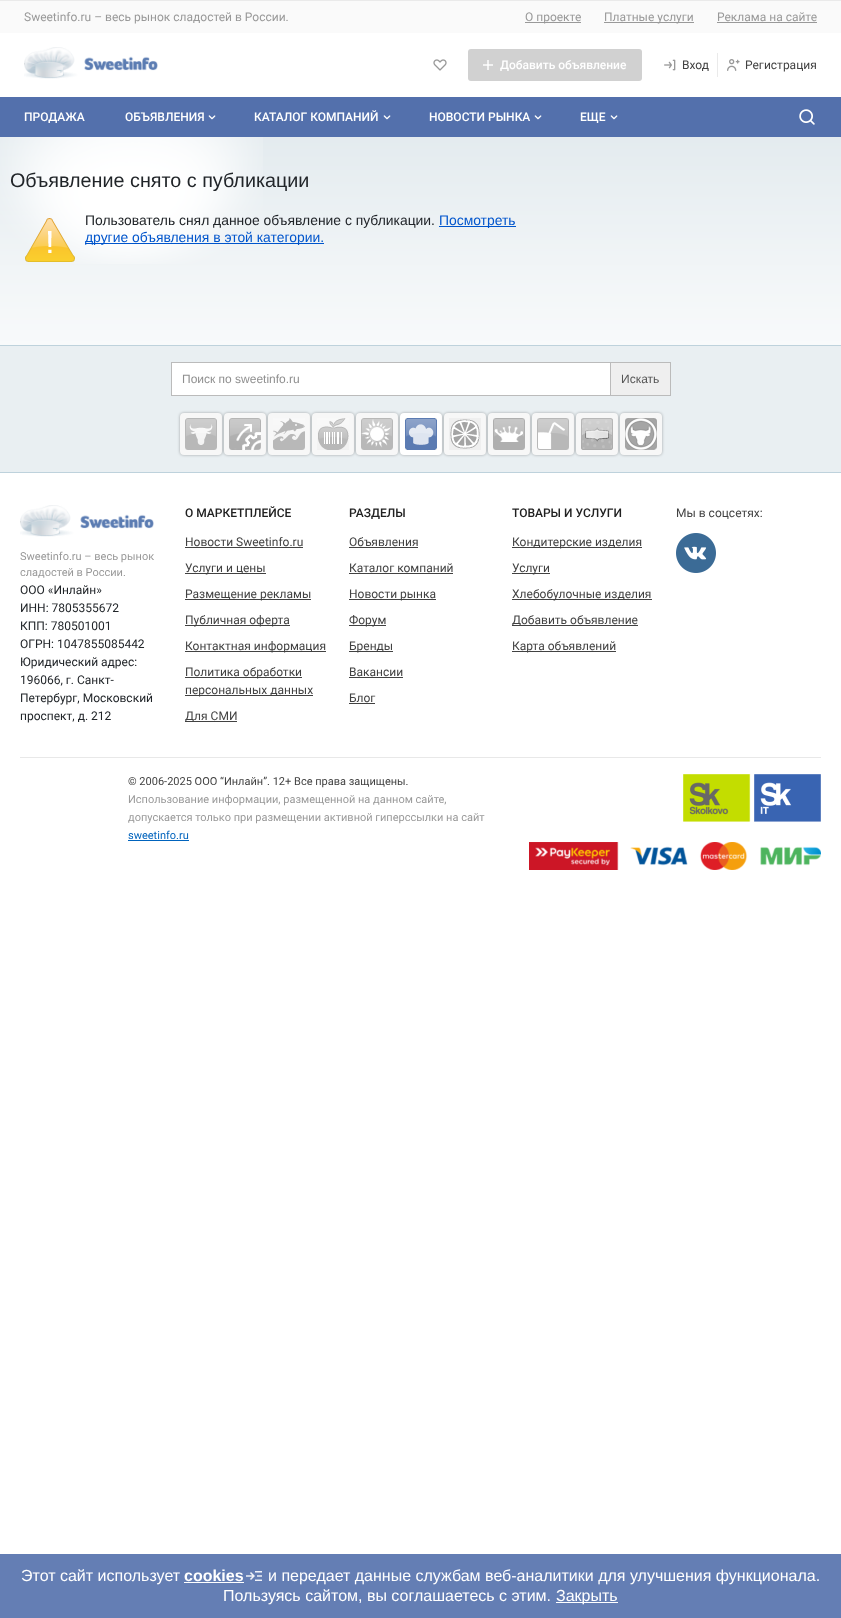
(async () => {
    const canvas = document.querySelector("canvas");
    canvas.width = 841;
    canvas.height = 1618;
    const context = canvas.getContext("2d");
    context.miterLimit = 4;
    context.fontKerning = "normal";
    function write(s, x, y, font, color) {
        context.font = font;
        context.fillStyle = color;
        context.fillText(s, x, y);
    }
    function block(x, y, w, h, color) {
        context.fillStyle = color;
        context.fillRect(x, y, w, h);
    }
    function card(x, y, w, h, r, color) {
        context.fillStyle = color;
        context.beginPath();
        context.roundRect(x, y, w, h, r);
        context.fill();
    }
    async function photo(src, x, y, w, h) {
        const img = new Image();
        img.src = src;
        await img.decode();
        context.drawImage(img, x, y, w, h);
    }

    block(0, 0, 841, 1618, "rgb(255, 255, 255)");
    await photo("media/1.png", 0, 137, 841, 208);
    block(0, 1, 841, 32, "rgb(250, 250, 250)");
    block(0, 0, 841, 1, "rgb(234, 234, 234)");
    write("Sweetinfo.ru – весь рынок сладостей в России.", 24, 21, "12px Roboto", "rgb(153, 153, 153)");
    block(525, 22, 56, 1, "rgb(153, 153, 153)");
    write("О проекте", 525, 21, "12px Roboto", "rgb(153, 153, 153)");
    block(604, 22, 90, 1, "rgb(153, 153, 153)");
    write("Платные услуги", 604, 21, "12px Roboto", "rgb(153, 153, 153)");
    write("Реклама на сайте", 717, 21, "12px Roboto", "rgb(153, 153, 153)");
    block(717, 22, 100, 1, "rgb(153, 153, 153)");
    await photo("media/2.png", 24, 47, 134, 32);
    await photo("media/3.png", 433, 59, 14, 12);
    card(468, 49, 174, 32, 3, "rgb(209, 209, 209)");
    await photo("media/4.png", 483, 60, 10, 10);
    write("Добавить объявление", 500, 69, "500 12px Roboto", "rgb(255, 255, 255)");
    await photo("media/5.png", 664, 59, 12, 12);
    write("Вход", 682, 69, "12px Roboto", "rgb(66, 66, 66)");
    block(717, 53, 1, 24, "rgb(234, 234, 234)");
    await photo("media/6.png", 727, 59, 13, 12);
    write("Регистрация", 745, 69, "12px Roboto", "rgb(66, 66, 66)");
    block(0, 97, 841, 40, "rgb(83, 112, 172)");
    write("ПРОДАЖА", 24, 121, "500 12px Roboto", "rgb(255, 255, 255)");
    write("ОБЪЯВЛЕНИЯ", 125, 121, "500 12px Roboto", "rgb(255, 255, 255)");
    await photo("media/7.png", 208, 115, 8, 5);
    write("КАТАЛОГ КОМПАНИЙ", 254, 121, "500 12px Roboto", "rgb(255, 255, 255)");
    await photo("media/7.png", 383, 115, 8, 5);
    write("НОВОСТИ РЫНКА", 429, 121, "500 12px Roboto", "rgb(255, 255, 255)");
    await photo("media/7.png", 534, 115, 8, 5);
    write("ЕЩЕ", 580, 121, "500 12px Roboto", "rgb(255, 255, 255)");
    await photo("media/7.png", 610, 115, 8, 5);
    await photo("media/8.png", 799, 109, 16, 16);
    await photo("media/9.png", 0, 137, 263, 127);
    write("Объявление снято с публикации", 10, 187, "19.75px Liberation Sans", "rgb(33, 37, 41)");
    await photo("media/10.png", 25, 218, 50, 44);
    write("Пользователь снял данное объявление с публикации.", 85, 225, "13.9px Liberation Sans", "rgb(33, 37, 41)");
    block(439, 226, 77, 1, "rgb(0, 85, 204)");
    write("Посмотреть", 439, 225, "13.9px Liberation Sans", "rgb(0, 85, 204)");
    block(85, 243, 239, 1, "rgb(0, 85, 204)");
    write("другие объявления в этой категории.", 85, 242, "13.9px Liberation Sans", "rgb(0, 85, 204)");
    block(0, 346, 841, 126, "rgb(233, 239, 242)");
    block(0, 345, 841, 1, "rgb(190, 210, 220)");
    block(0, 472, 841, 1, "rgb(190, 210, 220)");
    context.strokeStyle = "rgb(187, 187, 187)";
    context.strokeRect(171.5, 362.5, 499, 33);
    block(172, 363, 438, 32, "rgb(255, 255, 255)");
    write("Поиск по sweetinfo.ru", 182, 383, "12px Liberation Sans", "rgb(143, 143, 143)");
    block(611, 363, 59, 32, "rgb(239, 239, 239)");
    block(610, 363, 1, 32, "rgb(187, 187, 187)");
    write("Искать", 621, 383, "12px Liberation Sans", "rgb(85, 85, 85)");
    context.fillStyle = "rgba(0, 0, 0, 0.3)";
    context.filter = "blur(1.5px)";
    context.beginPath();
    context.roundRect(180, 413, 42, 42, 4);
    context.fill();
    context.filter = "none";
    card(180, 413, 42, 42, 4, "rgb(247, 247, 247)");
    await photo("media/11.png", 185, 418, 32, 32);
    context.fillStyle = "rgba(0, 0, 0, 0.3)";
    context.filter = "blur(1.5px)";
    context.beginPath();
    context.roundRect(224, 413, 42, 42, 4);
    context.fill();
    context.filter = "none";
    card(224, 413, 42, 42, 4, "rgb(247, 247, 247)");
    await photo("media/12.png", 229, 418, 32, 32);
    context.fillStyle = "rgba(0, 0, 0, 0.3)";
    context.filter = "blur(1.5px)";
    context.beginPath();
    context.roundRect(268, 413, 42, 42, 4);
    context.fill();
    context.filter = "none";
    card(268, 413, 42, 42, 4, "rgb(247, 247, 247)");
    await photo("media/13.png", 273, 418, 32, 32);
    context.fillStyle = "rgba(0, 0, 0, 0.3)";
    context.filter = "blur(1.5px)";
    context.beginPath();
    context.roundRect(312, 413, 42, 42, 4);
    context.fill();
    context.filter = "none";
    card(312, 413, 42, 42, 4, "rgb(247, 247, 247)");
    await photo("media/14.png", 317, 418, 32, 32);
    context.fillStyle = "rgba(0, 0, 0, 0.3)";
    context.filter = "blur(1.5px)";
    context.beginPath();
    context.roundRect(356, 413, 42, 42, 4);
    context.fill();
    context.filter = "none";
    card(356, 413, 42, 42, 4, "rgb(247, 247, 247)");
    await photo("media/15.png", 361, 418, 32, 32);
    context.fillStyle = "rgba(0, 0, 0, 0.3)";
    context.filter = "blur(1.5px)";
    context.beginPath();
    context.roundRect(400, 413, 42, 42, 4);
    context.fill();
    context.filter = "none";
    card(400, 413, 42, 42, 4, "rgb(255, 255, 255)");
    await photo("media/16.png", 405, 418, 32, 32);
    context.fillStyle = "rgba(0, 0, 0, 0.3)";
    context.filter = "blur(1.5px)";
    context.beginPath();
    context.roundRect(444, 413, 42, 42, 4);
    context.fill();
    context.filter = "none";
    card(444, 413, 42, 42, 4, "rgb(247, 247, 247)");
    await photo("media/17.png", 449, 418, 32, 32);
    context.fillStyle = "rgba(0, 0, 0, 0.3)";
    context.filter = "blur(1.5px)";
    context.beginPath();
    context.roundRect(488, 413, 42, 42, 4);
    context.fill();
    context.filter = "none";
    card(488, 413, 42, 42, 4, "rgb(247, 247, 247)");
    await photo("media/18.png", 493, 418, 32, 32);
    context.fillStyle = "rgba(0, 0, 0, 0.3)";
    context.filter = "blur(1.5px)";
    context.beginPath();
    context.roundRect(532, 413, 42, 42, 4);
    context.fill();
    context.filter = "none";
    card(532, 413, 42, 42, 4, "rgb(247, 247, 247)");
    await photo("media/19.png", 537, 418, 32, 32);
    context.fillStyle = "rgba(0, 0, 0, 0.3)";
    context.filter = "blur(1.5px)";
    context.beginPath();
    context.roundRect(576, 413, 42, 42, 4);
    context.fill();
    context.filter = "none";
    card(576, 413, 42, 42, 4, "rgb(247, 247, 247)");
    await photo("media/20.png", 581, 418, 32, 32);
    context.fillStyle = "rgba(0, 0, 0, 0.3)";
    context.filter = "blur(1.5px)";
    context.beginPath();
    context.roundRect(620, 413, 42, 42, 4);
    context.fill();
    context.filter = "none";
    card(620, 413, 42, 42, 4, "rgb(247, 247, 247)");
    await photo("media/21.png", 625, 418, 32, 32);
    write("О МАРКЕТПЛЕЙСЕ", 185, 517, "500 12px Roboto", "rgb(33, 33, 33)");
    write("Новости Sweetinfo.ru", 185, 546, "12px Roboto", "rgb(66, 66, 66)");
    block(185, 547, 118, 1, "rgb(66, 66, 66)");
    block(185, 573, 81, 1, "rgb(66, 66, 66)");
    write("Услуги и цены", 185, 572, "12px Roboto", "rgb(66, 66, 66)");
    block(185, 599, 126, 1, "rgb(66, 66, 66)");
    write("Размещение рекламы", 185, 598, "12px Roboto", "rgb(66, 66, 66)");
    block(185, 625, 105, 1, "rgb(66, 66, 66)");
    write("Публичная оферта", 185, 624, "12px Roboto", "rgb(66, 66, 66)");
    block(185, 651, 141, 1, "rgb(66, 66, 66)");
    write("Контактная информация", 185, 650, "12px Roboto", "rgb(66, 66, 66)");
    block(185, 677, 117, 1, "rgb(66, 66, 66)");
    write("Политика обработки", 185, 676, "12px Roboto", "rgb(66, 66, 66)");
    block(185, 695, 128, 1, "rgb(66, 66, 66)");
    write("персональных данных", 185, 694, "12px Roboto", "rgb(66, 66, 66)");
    block(185, 721, 52, 1, "rgb(66, 66, 66)");
    write("Для СМИ", 185, 720, "12px Roboto", "rgb(66, 66, 66)");
    write("РАЗДЕЛЫ", 349, 517, "500 12px Roboto", "rgb(33, 33, 33)");
    write("Объявления", 349, 546, "12px Roboto", "rgb(66, 66, 66)");
    block(349, 547, 69, 1, "rgb(66, 66, 66)");
    write("Каталог компаний", 349, 572, "12px Roboto", "rgb(66, 66, 66)");
    block(349, 573, 104, 1, "rgb(66, 66, 66)");
    block(349, 599, 87, 1, "rgb(66, 66, 66)");
    write("Новости рынка", 349, 598, "12px Roboto", "rgb(66, 66, 66)");
    block(349, 625, 37, 1, "rgb(66, 66, 66)");
    write("Форум", 349, 624, "12px Roboto", "rgb(66, 66, 66)");
    block(349, 651, 44, 1, "rgb(66, 66, 66)");
    write("Бренды", 349, 650, "12px Roboto", "rgb(66, 66, 66)");
    write("Вакансии", 349, 676, "12px Roboto", "rgb(66, 66, 66)");
    block(349, 677, 54, 1, "rgb(66, 66, 66)");
    write("Блог", 349, 702, "12px Roboto", "rgb(66, 66, 66)");
    block(349, 703, 26, 1, "rgb(66, 66, 66)");
    write("ТОВАРЫ И УСЛУГИ", 512, 517, "500 12px Roboto", "rgb(33, 33, 33)");
    block(512, 547, 130, 1, "rgb(66, 66, 66)");
    write("Кондитерские изделия", 512, 546, "12px Roboto", "rgb(66, 66, 66)");
    block(512, 573, 38, 1, "rgb(66, 66, 66)");
    write("Услуги", 512, 572, "12px Roboto", "rgb(66, 66, 66)");
    block(512, 599, 140, 1, "rgb(66, 66, 66)");
    write("Хлебобулочные изделия", 512, 598, "12px Roboto", "rgb(66, 66, 66)");
    block(512, 625, 126, 1, "rgb(66, 66, 66)");
    write("Добавить объявление", 512, 624, "12px Roboto", "rgb(66, 66, 66)");
    block(512, 651, 104, 1, "rgb(66, 66, 66)");
    write("Карта объявлений", 512, 650, "12px Roboto", "rgb(66, 66, 66)");
    write("Мы в соцсетях:", 676, 517, "12px Roboto", "rgb(66, 66, 66)");
    await photo("media/22.png", 676, 533, 40, 40);
    await photo("media/2.png", 20, 505, 134, 32);
    write("Sweetinfo.ru – весь рынок", 20, 560, "11px Roboto", "rgb(153, 153, 153)");
    write("сладостей в России.", 20, 576, "11px Roboto", "rgb(153, 153, 153)");
    write("ООО «Инлайн»", 20, 594, "12px Roboto", "rgb(33, 37, 41)");
    write("ИНН: 7805355672", 20, 612, "12px Roboto", "rgb(33, 37, 41)");
    write("КПП: 780501001", 20, 630, "12px Roboto", "rgb(33, 37, 41)");
    write("ОГРН: 1047855085442", 20, 648, "12px Roboto", "rgb(33, 37, 41)");
    write("Юридический адрес:", 20, 666, "12px Roboto", "rgb(33, 37, 41)");
    write("196066, г. Санкт-", 20, 684, "12px Roboto", "rgb(33, 37, 41)");
    write("Петербург, Московский", 20, 702, "12px Roboto", "rgb(33, 37, 41)");
    write("проспект, д. 212", 20, 720, "12px Roboto", "rgb(33, 37, 41)");
    block(20, 757, 801, 1, "rgb(232, 232, 232)");
    write("© 2006‑2025 ООО “Инлайн”. 12+ Все права защищены.", 128, 785, "11px Roboto", "rgb(66, 66, 66)");
    write("Использование информации, размещенной на данном сайте,", 128, 803, "11px Roboto", "rgb(153, 153, 153)");
    write("допускается только при размещении активной гиперссылки на сайт", 128, 821, "11px Roboto", "rgb(153, 153, 153)");
    write("sweetinfo.ru", 128, 839, "11px Roboto", "rgb(0, 99, 189)");
    block(128, 840, 61, 1, "rgb(0, 99, 189)");
    await photo("media/23.png", 683, 774, 138, 48);
    await photo("media/24.png", 529, 842, 292, 28);
    block(0, 1554, 841, 64, "rgb(100, 126, 180)");
    write("Этот сайт использует", 21, 1581, "16px Liberation Sans", "rgb(255, 255, 255)");
    write("cookies", 184, 1581, "bold 16px Liberation Sans", "rgb(255, 255, 255)");
    block(184, 1582, 60, 1, "rgb(255, 255, 255)");
    await photo("media/25.png", 246, 1571, 16, 10);
    write("и передает данные службам веб-аналитики для улучшения функционала.", 268, 1581, "16px Liberation Sans", "rgb(255, 255, 255)");
    write("Пользуясь сайтом, вы соглашаетесь с этим.", 223, 1601, "16px Liberation Sans", "rgb(255, 255, 255)");
    block(556, 1602, 62, 1, "rgb(255, 255, 255)");
    write("Закрыть", 556, 1601, "16px Liberation Sans", "rgb(255, 255, 255)");
})();
